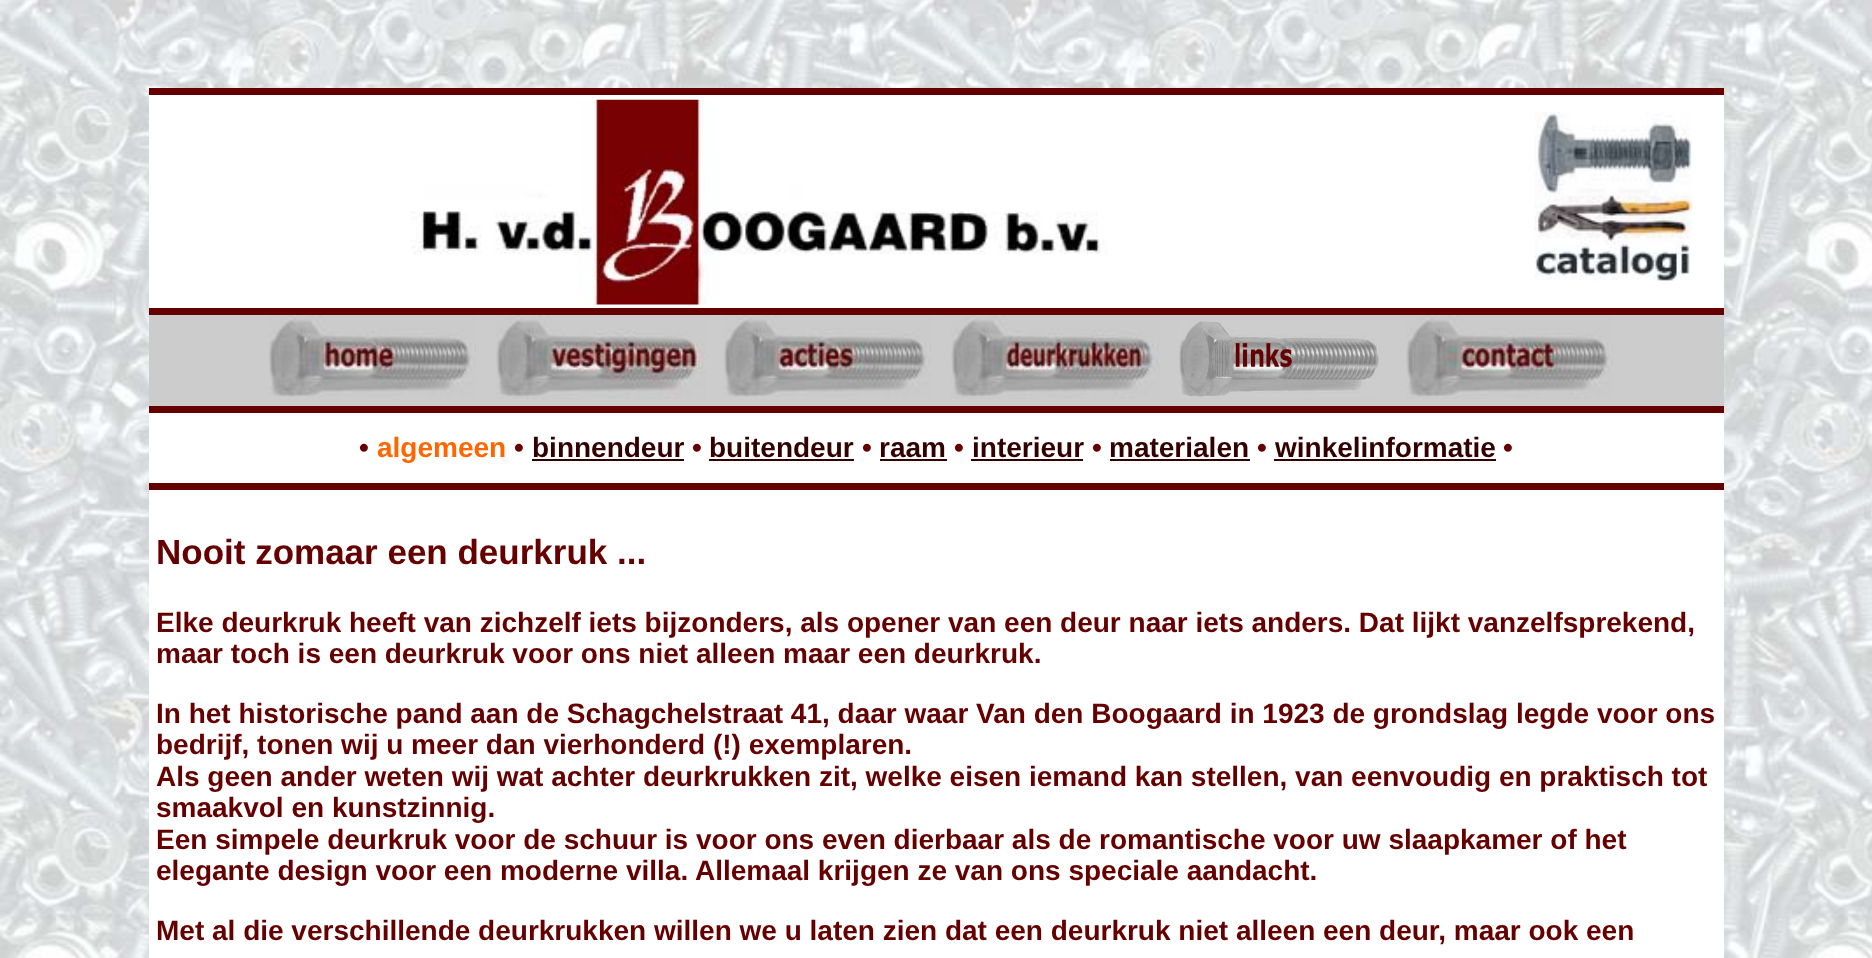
(async () => {
    const canvas = document.querySelector("canvas");
    canvas.width = 1872;
    canvas.height = 958;
    const context = canvas.getContext("2d");
    context.miterLimit = 4;
    context.fontKerning = "normal";
    function write(s, x, y, font, color) {
        context.font = font;
        context.fillStyle = color;
        context.fillText(s, x, y);
    }
    function block(x, y, w, h, color) {
        context.fillStyle = color;
        context.fillRect(x, y, w, h);
    }
    async function photo(src, x, y, w, h) {
        const img = new Image();
        img.src = src;
        await img.decode();
        context.drawImage(img, x, y, w, h);
    }

    block(0, 0, 1872, 958, "rgb(255, 255, 255)");
    await photo("media/1.png", 0, 0, 1872, 958);
    block(149, 95, 1575, 863, "rgb(255, 255, 255)");
    block(149, 88, 1575, 7, "rgb(102, 0, 0)");
    await photo("media/2.png", 411, 99, 696, 206);
    await photo("media/3.png", 1534, 112, 159, 169);
    block(149, 308, 1575, 7, "rgb(102, 0, 0)");
    block(149, 315, 1575, 91, "rgb(204, 204, 204)");
    await photo("media/4.png", 269, 315, 207, 82);
    await photo("media/5.png", 496, 315, 210, 84);
    await photo("media/6.png", 724, 315, 207, 82);
    await photo("media/7.png", 951, 315, 209, 84);
    await photo("media/8.png", 1179, 321, 200, 76);
    await photo("media/9.png", 1406, 315, 207, 84);
    block(149, 406, 1575, 7, "rgb(102, 0, 0)");
    write("•", 359, 457, "bold 28px Liberation Sans", "rgb(102, 0, 0)");
    write("algemeen", 377, 457, "bold 28px Liberation Sans", "rgb(255, 102, 0)");
    write("•", 514, 457, "bold 28px Liberation Sans", "rgb(102, 0, 0)");
    write("binnendeur", 532, 457, "bold 28px Liberation Sans", "rgb(51, 0, 0)");
    block(532, 459, 152, 2, "rgb(51, 0, 0)");
    write("•", 692, 457, "bold 28px Liberation Sans", "rgb(102, 0, 0)");
    write("buitendeur", 709, 457, "bold 28px Liberation Sans", "rgb(51, 0, 0)");
    block(709, 459, 145, 2, "rgb(51, 0, 0)");
    write("•", 862, 457, "bold 28px Liberation Sans", "rgb(102, 0, 0)");
    write("raam", 879, 457, "bold 28px Liberation Sans", "rgb(51, 0, 0)");
    block(880, 459, 67, 2, "rgb(51, 0, 0)");
    write("•", 954, 457, "bold 28px Liberation Sans", "rgb(102, 0, 0)");
    write("interieur", 972, 457, "bold 28px Liberation Sans", "rgb(51, 0, 0)");
    block(971, 459, 112, 2, "rgb(51, 0, 0)");
    write("•", 1092, 457, "bold 28px Liberation Sans", "rgb(102, 0, 0)");
    write("materialen", 1109, 457, "bold 28px Liberation Sans", "rgb(51, 0, 0)");
    block(1110, 459, 140, 2, "rgb(51, 0, 0)");
    write("•", 1257, 457, "bold 28px Liberation Sans", "rgb(102, 0, 0)");
    write("winkelinformatie", 1275, 457, "bold 28px Liberation Sans", "rgb(51, 0, 0)");
    block(1274, 459, 222, 2, "rgb(51, 0, 0)");
    write("•", 1503, 457, "bold 28px Liberation Sans", "rgb(102, 0, 0)");
    block(149, 483, 1575, 7, "rgb(102, 0, 0)");
    write("Nooit zomaar een deurkruk ...", 156, 564, "bold 35px Liberation Sans", "rgb(102, 0, 0)");
    write("Elke deurkruk heeft van zichzelf iets bijzonders, als opener van een deur naar iets anders. Dat lijkt vanzelfsprekend,", 156, 632, "bold 28px Liberation Sans", "rgb(102, 0, 0)");
    write("maar toch is een deurkruk voor ons niet alleen maar een deurkruk.", 156, 663, "bold 28px Liberation Sans", "rgb(102, 0, 0)");
    write("In het historische pand aan de Schagchelstraat 41, daar waar Van den Boogaard in 1923 de grondslag legde voor ons", 156, 723, "bold 28px Liberation Sans", "rgb(102, 0, 0)");
    write("bedrijf, tonen wij u meer dan vierhonderd (!) exemplaren.", 156, 754, "bold 28px Liberation Sans", "rgb(102, 0, 0)");
    write("Als geen ander weten wij wat achter deurkrukken zit, welke eisen iemand kan stellen, van eenvoudig en praktisch tot", 156, 786, "bold 28px Liberation Sans", "rgb(102, 0, 0)");
    write("smaakvol en kunstzinnig.", 156, 817, "bold 28px Liberation Sans", "rgb(102, 0, 0)");
    write("Een simpele deurkruk voor de schuur is voor ons even dierbaar als de romantische voor uw slaapkamer of het", 156, 849, "bold 28px Liberation Sans", "rgb(102, 0, 0)");
    write("elegante design voor een moderne villa. Allemaal krijgen ze van ons speciale aandacht.", 156, 880, "bold 28px Liberation Sans", "rgb(102, 0, 0)");
    write("Met al die verschillende deurkrukken willen we u laten zien dat een deurkruk niet alleen een deur, maar ook een", 156, 940, "bold 28px Liberation Sans", "rgb(102, 0, 0)");
})();
